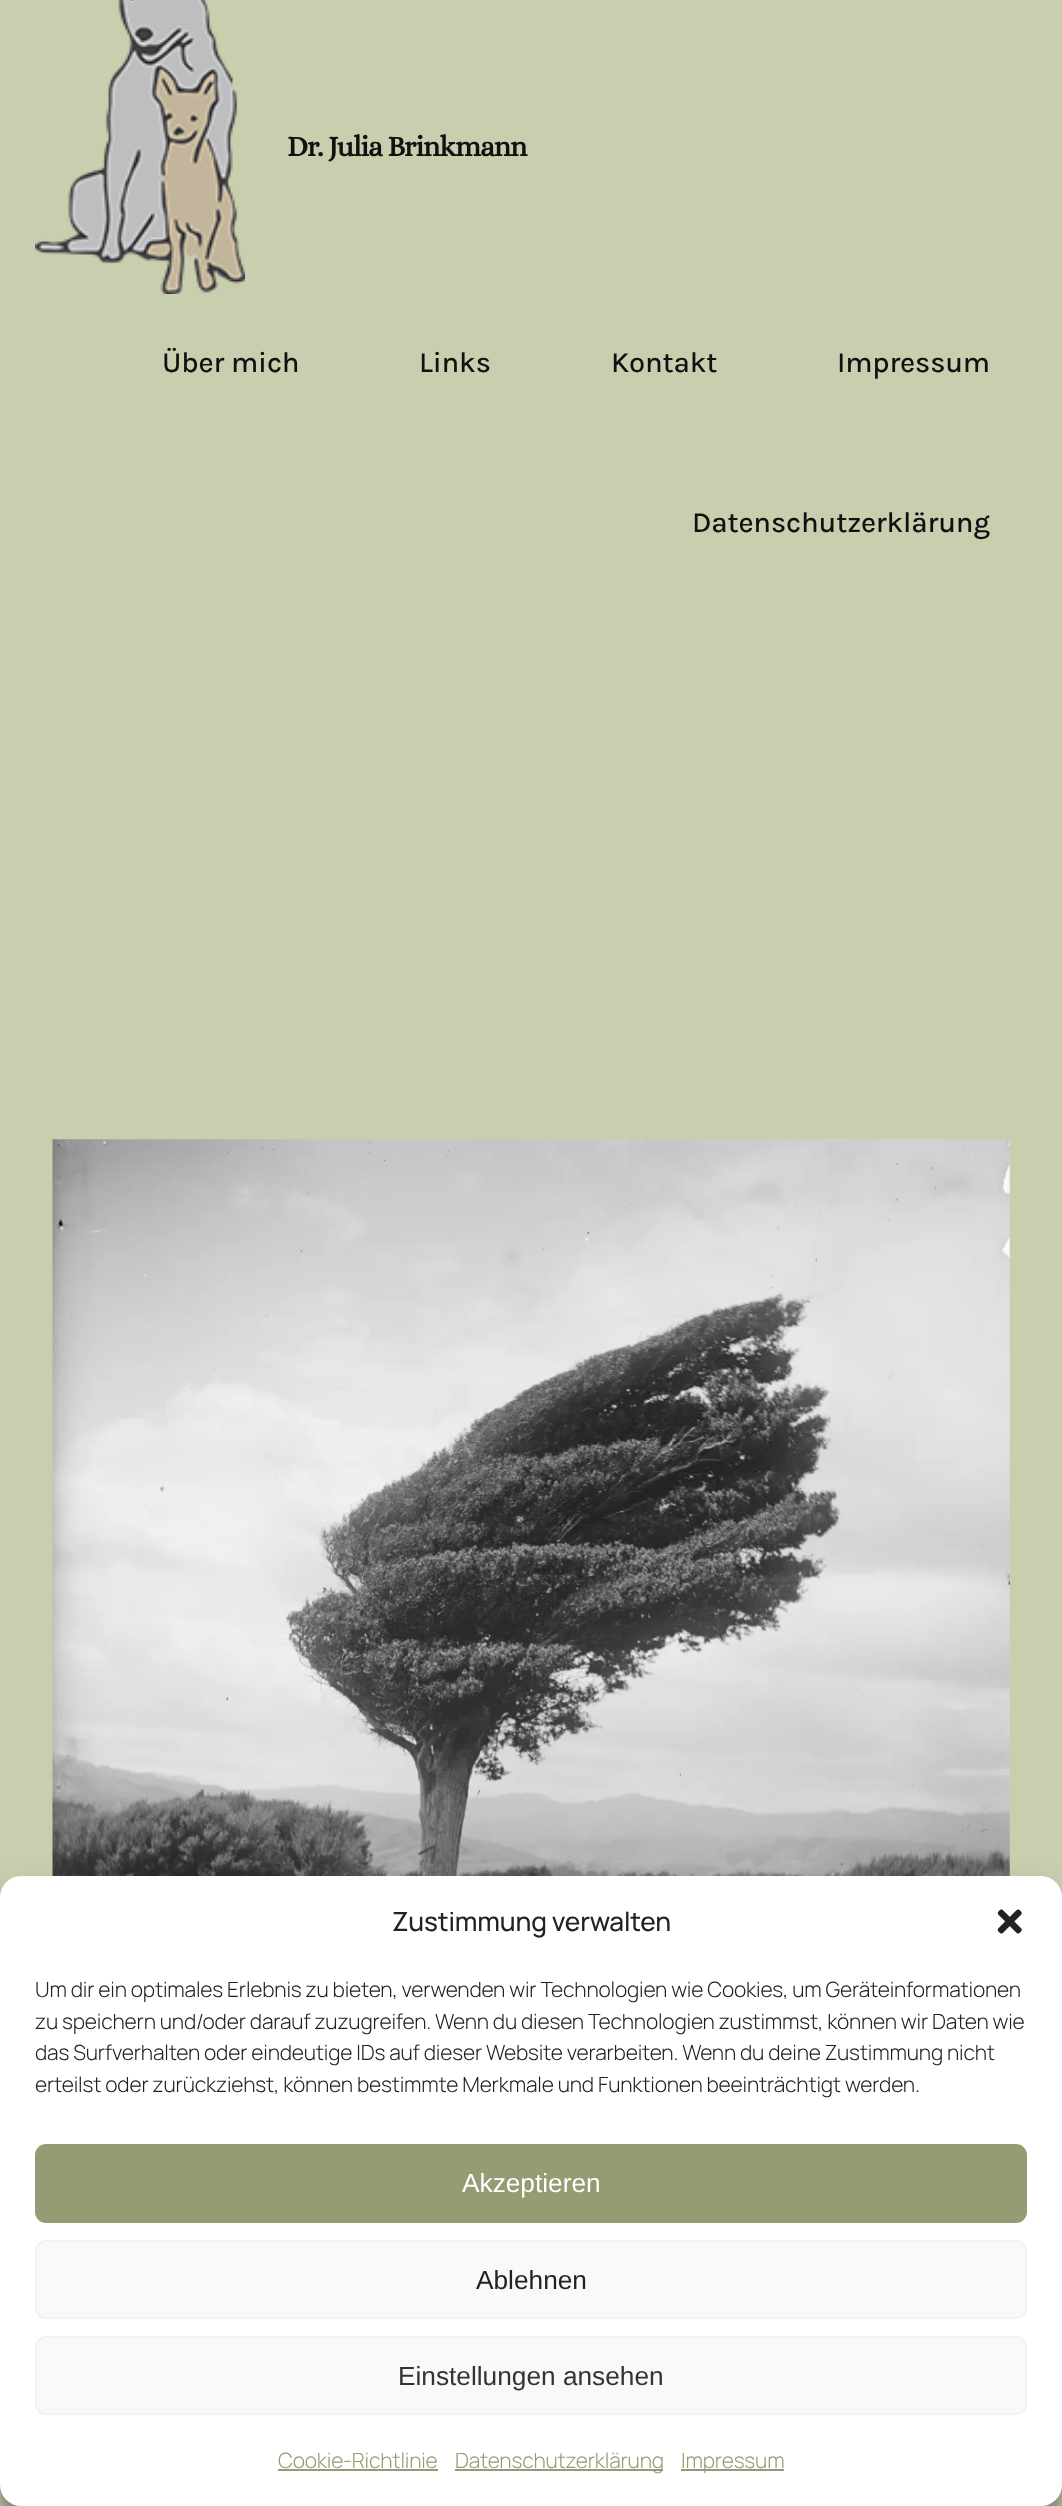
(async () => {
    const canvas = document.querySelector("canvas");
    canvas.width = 1062;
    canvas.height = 2506;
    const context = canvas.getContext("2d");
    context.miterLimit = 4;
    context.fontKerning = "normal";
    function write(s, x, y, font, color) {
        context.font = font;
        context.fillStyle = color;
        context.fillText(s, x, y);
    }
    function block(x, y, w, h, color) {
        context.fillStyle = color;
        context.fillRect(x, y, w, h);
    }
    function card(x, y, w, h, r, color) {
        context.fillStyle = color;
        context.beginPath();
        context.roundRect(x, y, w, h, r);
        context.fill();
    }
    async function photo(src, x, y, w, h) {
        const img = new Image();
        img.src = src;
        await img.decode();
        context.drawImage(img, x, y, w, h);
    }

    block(0, 0, 1062, 2506, "rgb(201, 206, 174)");
    await photo("media/1.png", 35, 0, 210, 294);
    context.letterSpacing = "-0.9px";
    write("Dr. Julia Brinkmann", 287, 156, "bold 29px Alice", "rgb(17, 17, 17)");
    context.letterSpacing = "-0.18px";
    write("Über mich", 162, 372, "500 29px Karla", "rgb(17, 17, 17)");
    write("Links", 419, 372, "500 29px Karla", "rgb(17, 17, 17)");
    write("Kontakt", 611, 372, "500 29px Karla", "rgb(17, 17, 17)");
    write("Impressum", 837, 372, "500 29px Karla", "rgb(17, 17, 17)");
    write("Datenschutzerklärung", 692, 532, "500 29px Karla", "rgb(17, 17, 17)");
    await photo("media/2.png", 52, 1139, 958, 737);
    context.fillStyle = "rgba(0, 0, 0, 0.23)";
    context.filter = "blur(5px)";
    context.beginPath();
    context.roundRect(0, 1887, 1062, 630, 21);
    context.fill();
    context.filter = "none";
    context.fillStyle = "rgba(0, 0, 0, 0.19)";
    context.filter = "blur(17.5px)";
    context.beginPath();
    context.roundRect(0, 1894, 1062, 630, 21);
    context.fill();
    context.filter = "none";
    card(0, 1876, 1062, 630, 21, "rgb(255, 255, 255)");
    write("Zustimmung verwalten", 392, 1931, "500 26.25px Manrope", "rgb(34, 34, 34)");
    await photo("media/3.png", 997, 1909, 25, 25);
    write("Um dir ein optimales Erlebnis zu bieten, verwenden wir Technologien wie Cookies, um Geräteinformationen", 35, 1997, "300 21px Manrope", "rgb(34, 34, 34)");
    write("zu speichern und/oder darauf zuzugreifen. Wenn du diesen Technologien zustimmst, können wir Daten wie", 35, 2029, "300 21px Manrope", "rgb(34, 34, 34)");
    write("das Surfverhalten oder eindeutige IDs auf dieser Website verarbeiten. Wenn du deine Zustimmung nicht", 35, 2060, "300 21px Manrope", "rgb(34, 34, 34)");
    write("erteilst oder zurückziehst, können bestimmte Merkmale und Funktionen beeinträchtigt werden.", 35, 2092, "300 21px Manrope", "rgb(34, 34, 34)");
    context.fillStyle = "rgb(150, 155, 115)";
    context.beginPath();
    context.roundRect(36, 2145, 990, 77, 10);
    context.fill();
    context.strokeStyle = "rgb(150, 155, 115)";
    context.lineWidth = 2;
    context.stroke();
    context.letterSpacing = "0px";
    write("Akzeptieren", 462, 2192, "26.25px Liberation Sans", "rgb(255, 255, 255)");
    context.fillStyle = "rgb(249, 249, 249)";
    context.beginPath();
    context.roundRect(36, 2241, 990, 77, 10);
    context.fill();
    context.strokeStyle = "rgb(242, 242, 242)";
    context.stroke();
    write("Ablehnen", 476, 2289, "26.25px Liberation Sans", "rgb(34, 34, 34)");
    context.fillStyle = "rgb(249, 249, 249)";
    context.beginPath();
    context.roundRect(36, 2337, 990, 77, 10);
    context.fill();
    context.stroke();
    write("Einstellungen ansehen", 398, 2385, "26.25px Liberation Sans", "rgb(51, 51, 51)");
    context.letterSpacing = "-0.18px";
    write("Cookie-Richtlinie", 278, 2468, "300 21px Manrope", "rgb(150, 155, 115)");
    block(278, 2469, 160, 2, "rgb(150, 155, 115)");
    block(455, 2469, 208, 2, "rgb(150, 155, 115)");
    write("Datenschutzerklärung", 455, 2468, "300 21px Manrope", "rgb(150, 155, 115)");
    block(681, 2469, 103, 2, "rgb(150, 155, 115)");
    write("Impressum", 681, 2468, "300 21px Manrope", "rgb(150, 155, 115)");
})();
